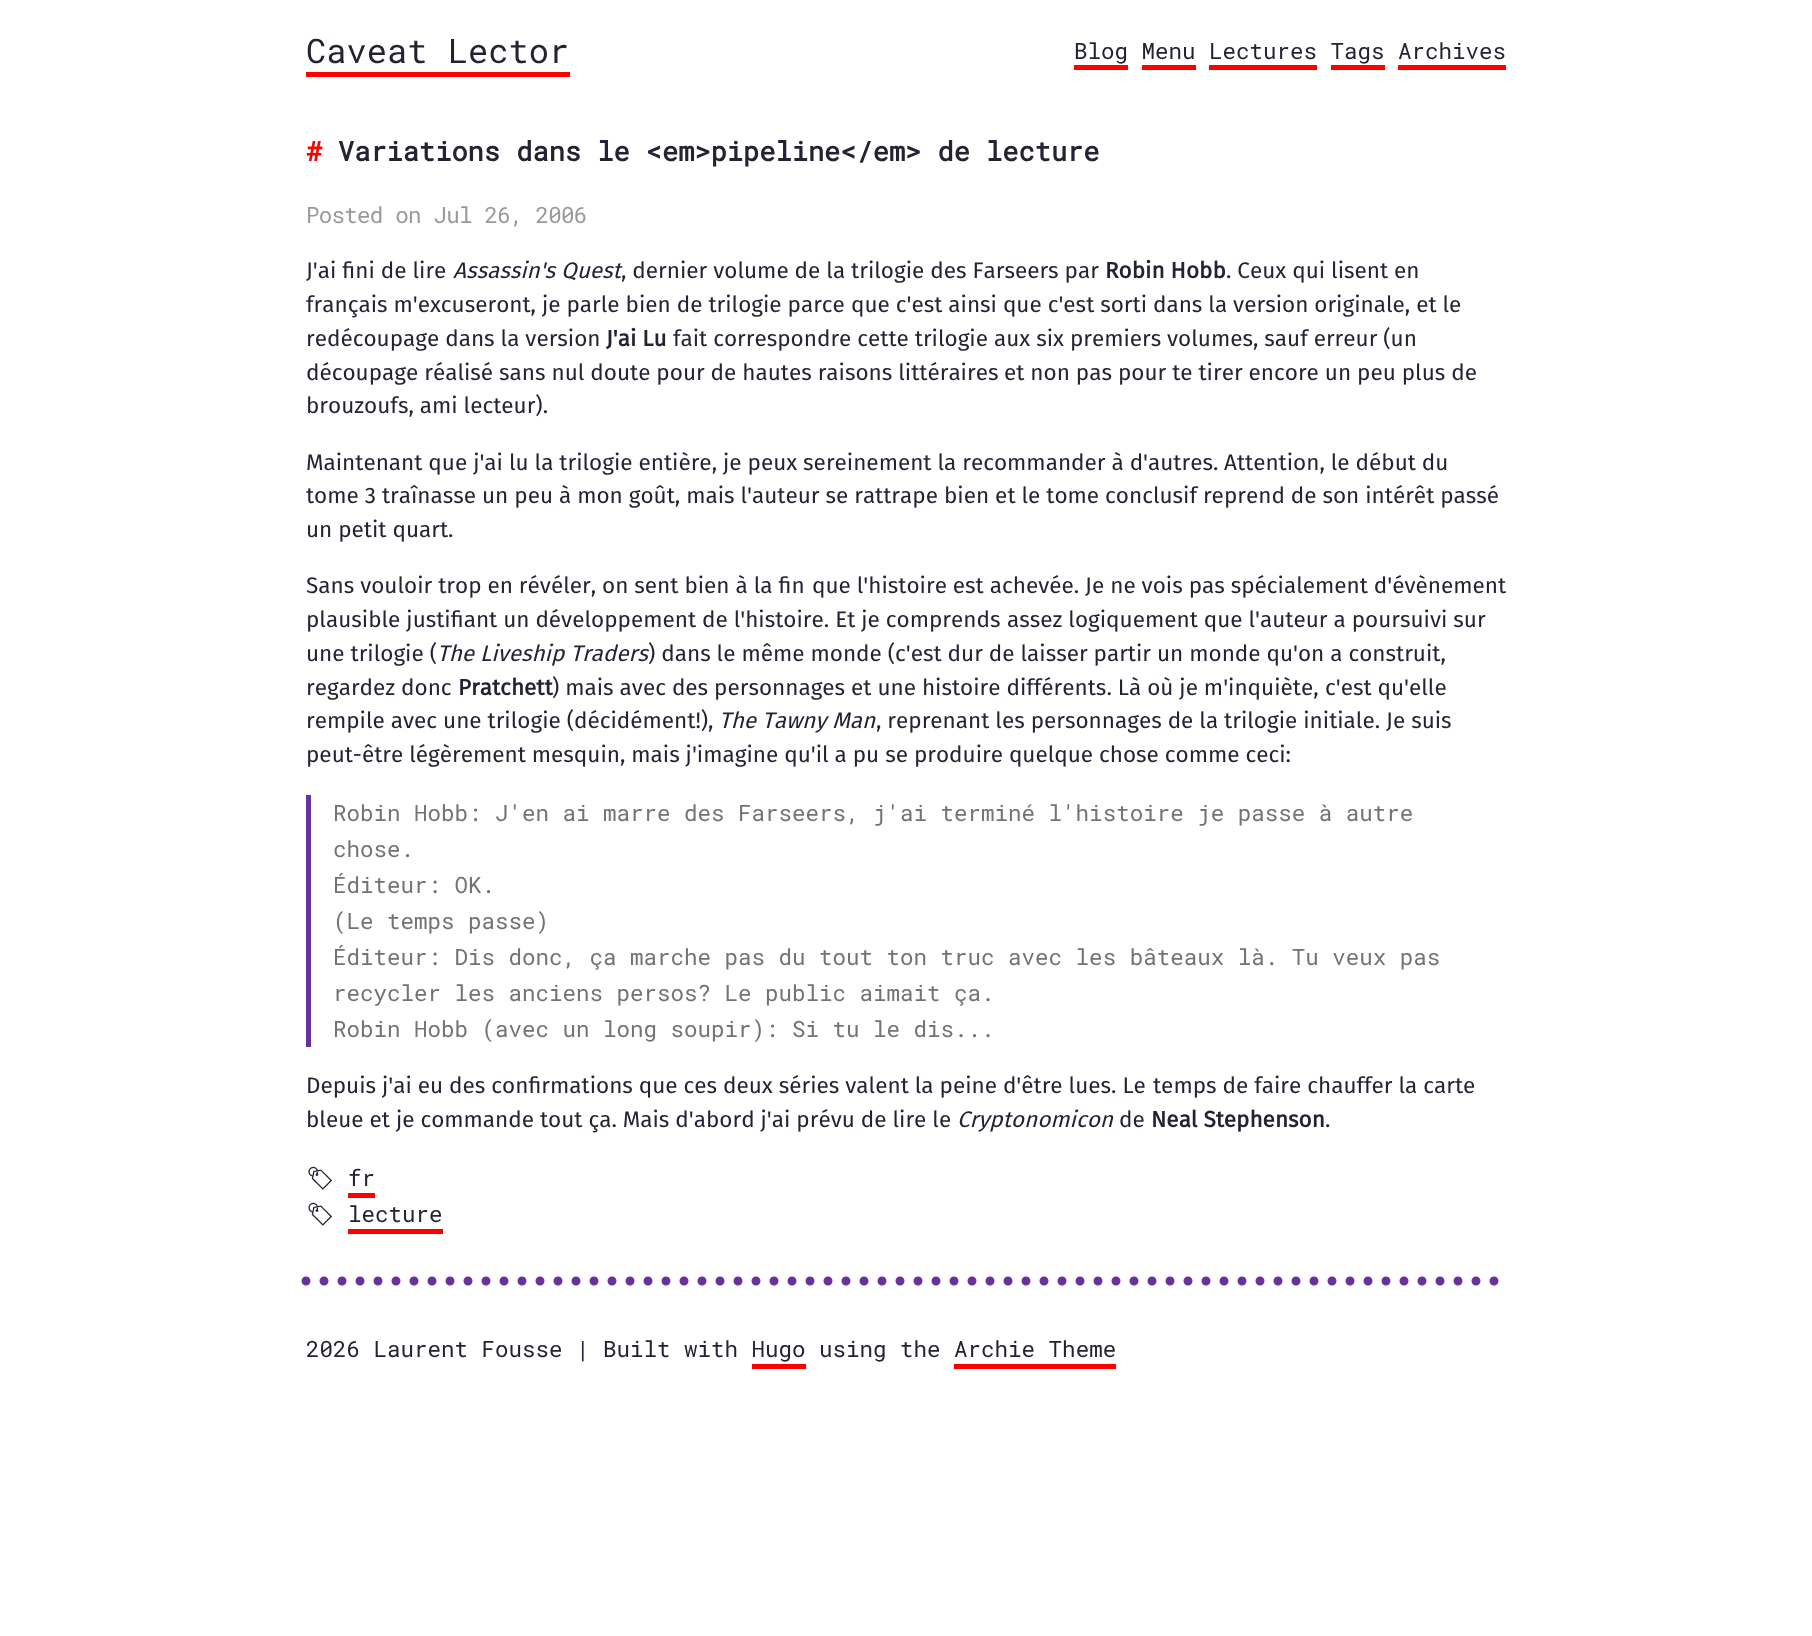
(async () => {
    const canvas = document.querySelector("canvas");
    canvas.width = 1812;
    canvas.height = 1636;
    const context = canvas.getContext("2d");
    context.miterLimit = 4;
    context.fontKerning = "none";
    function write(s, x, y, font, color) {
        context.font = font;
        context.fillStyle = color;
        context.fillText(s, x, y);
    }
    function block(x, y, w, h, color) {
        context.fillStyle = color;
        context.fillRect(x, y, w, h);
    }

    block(0, 0, 1812, 1636, "rgb(255, 255, 255)");
    write("Caveat Lector", 306, 63, "33.75px Roboto Mono", "rgb(35, 35, 51)");
    block(306, 72, 264, 5, "rgb(255, 0, 0)");
    write("Blog Menu Lectures Tags Archives", 1074, 59, "22.5px Roboto Mono", "rgb(35, 35, 51)");
    block(1074, 65, 54, 5, "rgb(255, 0, 0)");
    block(1142, 65, 54, 5, "rgb(255, 0, 0)");
    block(1209, 65, 108, 5, "rgb(255, 0, 0)");
    block(1331, 65, 54, 5, "rgb(255, 0, 0)");
    block(1398, 65, 108, 5, "rgb(255, 0, 0)");
    write("#", 306, 161, "bold 27px Roboto Mono", "rgb(255, 0, 0)");
    write("Variations dans le <em>pipeline<\/em> de lecture", 338, 161, "bold 27px Roboto Mono", "rgb(35, 35, 51)");
    context.letterSpacing = "-0.75px";
    write("Posted on Jul 26, 2006", 306, 223, "22.5px Roboto Mono", "rgb(153, 153, 153)");
    context.letterSpacing = "0px";
    write("J'ai fini de lire", 306, 278, "22.5px Fira Sans", "rgb(35, 35, 51)");
    write("Assassin's Quest", 453, 278, "italic 22.5px Fira Sans", "rgb(35, 35, 51)");
    write(", dernier volume de la trilogie des Farseers par", 621, 278, "22.5px Fira Sans", "rgb(35, 35, 51)");
    write("Robin Hobb", 1105, 278, "bold 22.5px Fira Sans", "rgb(35, 35, 51)");
    write(". Ceux qui lisent en", 1226, 278, "22.5px Fira Sans", "rgb(35, 35, 51)");
    write("français m'excuseront, je parle bien de trilogie parce", 306, 312, "22.5px Fira Sans", "rgb(35, 35, 51)");
    write("que c'est ainsi que c'est sorti dans la version originale, et le", 851, 312, "22.5px Fira Sans", "rgb(35, 35, 51)");
    write("redécoupage dans la version", 306, 346, "22.5px Fira Sans", "rgb(35, 35, 51)");
    write("J'ai Lu", 606, 346, "bold 22.5px Fira Sans", "rgb(35, 35, 51)");
    write("fait correspondre cette trilogie aux six premiers", 673, 346, "22.5px Fira Sans", "rgb(35, 35, 51)");
    write("volumes, sauf erreur (un", 1167, 346, "22.5px Fira Sans", "rgb(35, 35, 51)");
    write("découpage réalisé sans nul doute pour de hautes raisons littéraires", 306, 380, "22.5px Fira Sans", "rgb(35, 35, 51)");
    write("et non pas pour te tirer encore un peu plus de", 1004, 380, "22.5px Fira Sans", "rgb(35, 35, 51)");
    write("brouzoufs, ami lecteur).", 306, 413, "22.5px Fira Sans", "rgb(35, 35, 51)");
    write("Maintenant que j'ai lu la trilogie entière, je peux sereinement la recommander à d'autres.", 306, 470, "22.5px Fira Sans", "rgb(35, 35, 51)");
    write("Attention, le début du", 1224, 470, "22.5px Fira Sans", "rgb(35, 35, 51)");
    write("tome 3 traînasse un peu à mon goût, mais l'auteur se rattrape", 306, 503, "22.5px Fira Sans", "rgb(35, 35, 51)");
    write("bien et le tome conclusif reprend de son intérêt passé", 944, 503, "22.5px Fira Sans", "rgb(35, 35, 51)");
    write("un petit quart.", 306, 537, "22.5px Fira Sans", "rgb(35, 35, 51)");
    write("Sans vouloir trop en révéler, on sent bien à la fin", 306, 593, "22.5px Fira Sans", "rgb(35, 35, 51)");
    write("que l'histoire est achevée. Je ne vois pas spécialement d'évènement", 812, 593, "22.5px Fira Sans", "rgb(35, 35, 51)");
    write("plausible justifiant un développement de l'histoire. Et je comprends", 306, 627, "22.5px Fira Sans", "rgb(35, 35, 51)");
    write("assez logiquement que l'auteur a poursuivi sur", 1007, 627, "22.5px Fira Sans", "rgb(35, 35, 51)");
    write("une trilogie (", 306, 661, "22.5px Fira Sans", "rgb(35, 35, 51)");
    write("The Liveship Traders", 437, 661, "italic 22.5px Fira Sans", "rgb(35, 35, 51)");
    write(") dans le même monde (c'est dur de laisser partir un monde qu'on a construit,", 648, 661, "22.5px Fira Sans", "rgb(35, 35, 51)");
    write("regardez donc", 306, 695, "22.5px Fira Sans", "rgb(35, 35, 51)");
    write("Pratchett", 458, 695, "bold 22.5px Fira Sans", "rgb(35, 35, 51)");
    write(") mais avec des personnages et une histoire différents. Là où je m'inquiète,", 552, 695, "22.5px Fira Sans", "rgb(35, 35, 51)");
    write("c'est qu'elle", 1325, 695, "22.5px Fira Sans", "rgb(35, 35, 51)");
    write("rempile avec une trilogie (décidément!),", 306, 728, "22.5px Fira Sans", "rgb(35, 35, 51)");
    write("The Tawny Man", 719, 728, "italic 22.5px Fira Sans", "rgb(35, 35, 51)");
    write(", reprenant les personnages de la trilogie initiale. Je suis", 876, 728, "22.5px Fira Sans", "rgb(35, 35, 51)");
    write("peut-être légèrement mesquin, mais j'imagine qu'il a pu se produire quelque", 306, 762, "22.5px Fira Sans", "rgb(35, 35, 51)");
    write("chose comme ceci:", 1099, 762, "22.5px Fira Sans", "rgb(35, 35, 51)");
    block(306, 795, 5, 252, "rgb(102, 51, 153)");
    write("Robin Hobb: J'en ai marre des Farseers, j'ai terminé l'histoire je passe à autre", 333, 821, "22.5px Roboto Mono", "rgb(115, 115, 115)");
    write("chose.", 333, 857, "22.5px Roboto Mono", "rgb(115, 115, 115)");
    write("Éditeur: OK.", 333, 893, "22.5px Roboto Mono", "rgb(115, 115, 115)");
    write("(Le temps passe)", 333, 929, "22.5px Roboto Mono", "rgb(115, 115, 115)");
    write("Éditeur: Dis donc, ça marche pas du tout ton truc avec les bâteaux là. Tu veux pas", 333, 965, "22.5px Roboto Mono", "rgb(115, 115, 115)");
    write("recycler les anciens persos? Le public aimait ça.", 333, 1001, "22.5px Roboto Mono", "rgb(115, 115, 115)");
    write("Robin Hobb (avec un long soupir): Si tu le dis...", 333, 1037, "22.5px Roboto Mono", "rgb(115, 115, 115)");
    write("Depuis j'ai eu des confirmations que ces deux séries valent la peine d'être lues. Le", 306, 1093, "22.5px Fira Sans", "rgb(35, 35, 51)");
    write("temps de faire chauffer la carte", 1153, 1093, "22.5px Fira Sans", "rgb(35, 35, 51)");
    write("bleue et je commande tout ça. Mais d'abord j'ai prévu de lire le", 306, 1127, "22.5px Fira Sans", "rgb(35, 35, 51)");
    write("Cryptonomicon", 957, 1127, "italic 22.5px Fira Sans", "rgb(35, 35, 51)");
    write("de", 1119, 1127, "22.5px Fira Sans", "rgb(35, 35, 51)");
    write("Neal Stephenson", 1151, 1127, "bold 22.5px Fira Sans", "rgb(35, 35, 51)");
    write(".", 1325, 1127, "22.5px Fira Sans", "rgb(35, 35, 51)");
    write("🏷", 306, 1186, "bold 22.5px Noto Emoji", "rgb(35, 35, 51)");
    write("fr", 348, 1186, "22.5px Roboto Mono", "rgb(35, 35, 51)");
    block(348, 1193, 27, 5, "rgb(255, 0, 0)");
    write("🏷", 306, 1222, "bold 22.5px Noto Emoji", "rgb(35, 35, 51)");
    write("lecture", 348, 1222, "22.5px Roboto Mono", "rgb(35, 35, 51)");
    block(348, 1229, 95, 5, "rgb(255, 0, 0)");
    context.beginPath();
    context.moveTo(306, 1281);
    context.lineTo(1506, 1281);
    context.strokeStyle = "rgb(102, 51, 153)";
    context.lineWidth = 9;
    context.lineCap = "round";
    context.setLineDash([0, 18]);
    context.stroke();
    write("2026 Laurent Fousse | Built with Hugo using the Archie Theme", 306, 1357, "22.5px Roboto Mono", "rgb(35, 35, 51)");
    block(752, 1364, 54, 5, "rgb(255, 0, 0)");
    block(954, 1364, 162, 5, "rgb(255, 0, 0)");
})();
